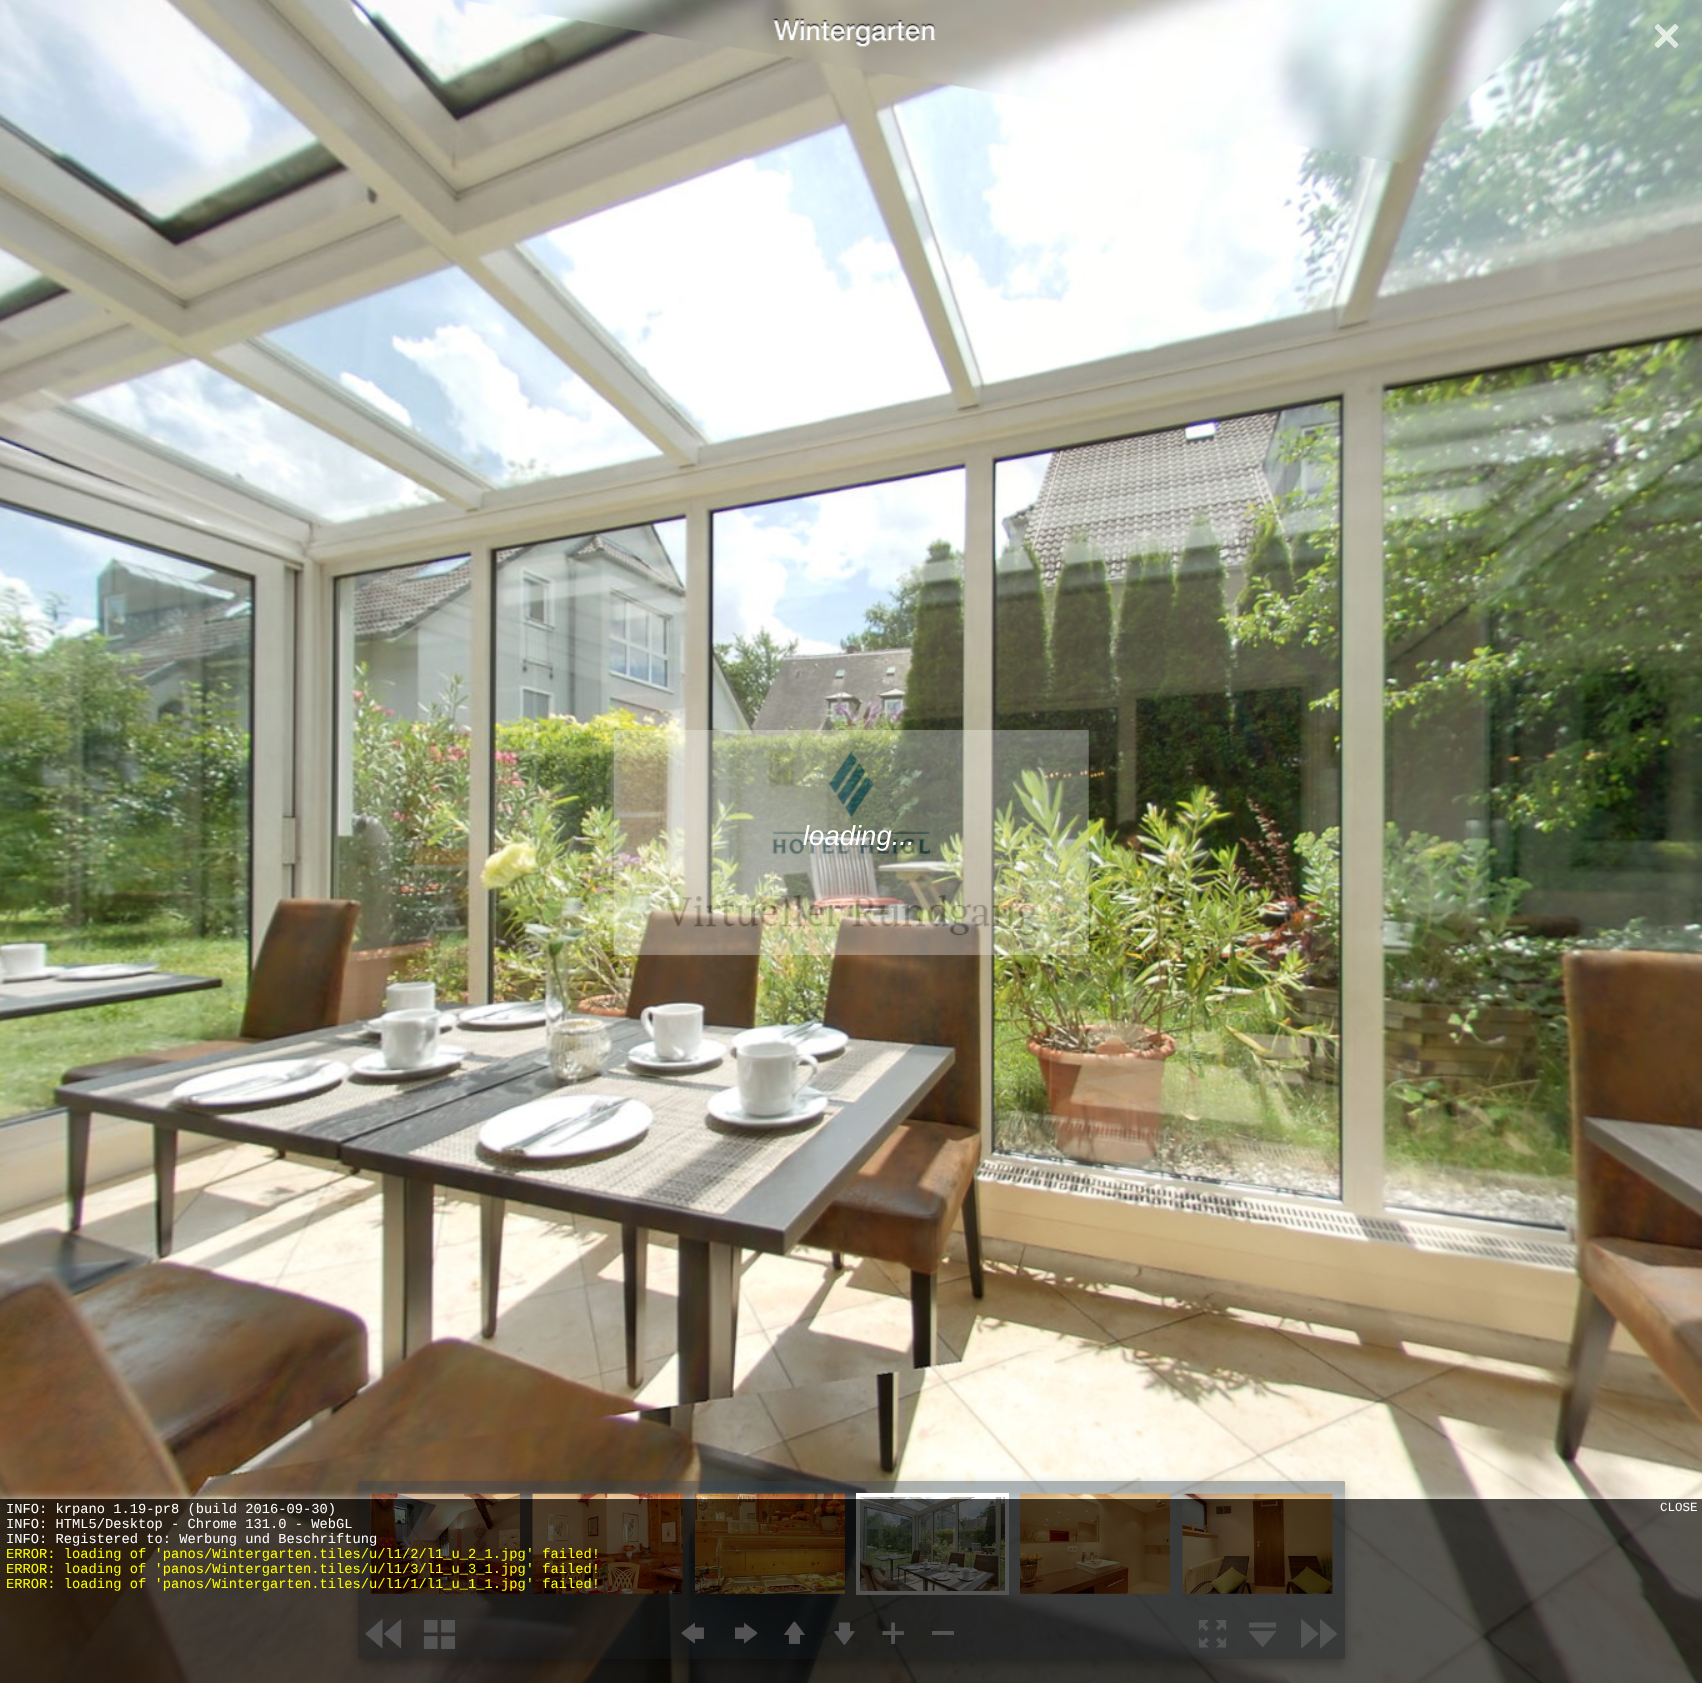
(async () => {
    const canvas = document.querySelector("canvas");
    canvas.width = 1702;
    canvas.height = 1683;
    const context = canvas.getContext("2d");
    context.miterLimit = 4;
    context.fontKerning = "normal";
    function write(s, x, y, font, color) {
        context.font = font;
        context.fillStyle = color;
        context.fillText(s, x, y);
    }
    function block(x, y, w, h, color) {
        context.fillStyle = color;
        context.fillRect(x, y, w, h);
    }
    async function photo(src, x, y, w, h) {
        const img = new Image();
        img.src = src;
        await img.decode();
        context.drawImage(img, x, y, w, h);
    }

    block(0, 0, 1702, 1683, "rgb(255, 255, 255)");
    await photo("media/1.png", 0, 0, 1702, 1683);
    await photo("media/2.png", 773, 18, 163, 29);
    await photo("media/3.png", 1654, 24, 25, 24);
    await photo("media/4.png", 613, 730, 476, 225);
    write("loading...", 803, 845, "italic 27.5px Liberation Sans", "rgb(255, 255, 255)");
    context.save();
    context.beginPath();
    context.rect(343, 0, 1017, 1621);
    context.clip();
    context.beginPath();
    context.moveTo(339, 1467);
    context.lineTo(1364, 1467);
    context.lineTo(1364, 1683);
    context.lineTo(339, 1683);
    context.closePath();
    context.moveTo(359, 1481);
    context.lineTo(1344, 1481);
    context.bezierCurveTo(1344.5, 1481, 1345, 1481.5, 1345, 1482);
    context.lineTo(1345, 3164);
    context.bezierCurveTo(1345, 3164.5, 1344.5, 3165, 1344, 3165);
    context.lineTo(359, 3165);
    context.bezierCurveTo(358.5, 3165, 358, 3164.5, 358, 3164);
    context.lineTo(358, 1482);
    context.bezierCurveTo(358, 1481.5, 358.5, 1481, 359, 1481);
    context.closePath();
    context.clip("evenodd");
    context.fillStyle = "rgba(0, 0, 0, 0.3)";
    context.filter = "blur(6px)";
    context.beginPath();
    context.roundRect(358, 1486, 987, 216, 1);
    context.fill();
    context.filter = "none";
    context.restore();
    context.fillStyle = "rgba(45, 62, 80, 0.4)";
    context.beginPath();
    context.roundRect(358, 1481, 987, 140, [1, 1, 0, 0]);
    context.fill();
    await photo("media/5.png", 370, 1493, 150, 101);
    await photo("media/6.png", 532, 1493, 151, 101);
    await photo("media/7.png", 695, 1493, 150, 101);
    await photo("media/8.png", 860, 1497, 145, 94);
    context.strokeStyle = "rgb(255, 255, 255)";
    context.lineWidth = 4;
    context.strokeRect(858, 1495, 149, 98);
    await photo("media/9.png", 1020, 1493, 150, 101);
    await photo("media/10.png", 1182, 1493, 151, 101);
    context.save();
    context.beginPath();
    context.rect(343, 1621, 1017, 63);
    context.clip();
    context.beginPath();
    context.moveTo(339, 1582);
    context.lineTo(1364, 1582);
    context.lineTo(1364, 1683);
    context.lineTo(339, 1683);
    context.closePath();
    context.moveTo(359, 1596);
    context.lineTo(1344, 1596);
    context.bezierCurveTo(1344.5, 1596, 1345, 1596.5, 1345, 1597);
    context.lineTo(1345, 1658);
    context.bezierCurveTo(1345, 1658.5, 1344.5, 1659, 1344, 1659);
    context.lineTo(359, 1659);
    context.bezierCurveTo(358.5, 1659, 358, 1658.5, 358, 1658);
    context.lineTo(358, 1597);
    context.bezierCurveTo(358, 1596.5, 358.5, 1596, 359, 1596);
    context.closePath();
    context.clip("evenodd");
    context.fillStyle = "rgba(0, 0, 0, 0.3)";
    context.filter = "blur(6px)";
    context.beginPath();
    context.roundRect(358, 1601, 987, 63, 1);
    context.fill();
    context.filter = "none";
    context.restore();
    context.beginPath();
    context.roundRect(358, 1621, 987, 38, [0, 0, 1, 1]);
    context.fill();
    await photo("media/11.png", 365, 1619, 37, 30);
    await photo("media/12.png", 423, 1620, 32, 29);
    await photo("media/13.png", 681, 1622, 23, 22);
    await photo("media/14.png", 735, 1622, 23, 22);
    await photo("media/15.png", 783, 1621, 23, 23);
    await photo("media/16.png", 833, 1622, 23, 23);
    await photo("media/17.png", 882, 1622, 22, 22);
    block(932, 1631, 22, 4, "rgb(255, 255, 255)");
    await photo("media/18.png", 1198, 1620, 29, 28);
    await photo("media/19.png", 1248, 1622, 29, 26);
    await photo("media/20.png", 1301, 1619, 37, 30);
    context.save();
    context.beginPath();
    context.rect(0, 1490, 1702, 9);
    context.clip();
    context.fillStyle = "rgba(255, 255, 255, 0.67)";
    context.filter = "blur(5px)";
    context.beginPath();
    context.rect(0, 1499, 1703, 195);
    context.fill();
    context.filter = "none";
    context.restore();
    block(0, 1499, 1702, 184, "rgba(0, 0, 0, 0.67)");
    write("INFO: krpano 1.19-pr8 (build 2016-09-30)", 6, 1513, "13.75px Liberation Mono", "rgb(255, 255, 255)");
    write("INFO: HTML5/Desktop - Chrome 131.0 - WebGL", 6, 1528, "13.75px Liberation Mono", "rgb(255, 255, 255)");
    write("INFO: Registered to: Werbung und Beschriftung", 6, 1543, "13.75px Liberation Mono", "rgb(255, 255, 255)");
    write("ERROR: loading of 'panos/Wintergarten.tiles/u/l1/2/l1_u_2_1.jpg' failed!", 6, 1558, "13.75px Liberation Mono", "rgb(255, 255, 0)");
    write("ERROR: loading of 'panos/Wintergarten.tiles/u/l1/3/l1_u_3_1.jpg' failed!", 6, 1573, "13.75px Liberation Mono", "rgb(255, 255, 0)");
    write("ERROR: loading of 'panos/Wintergarten.tiles/u/l1/1/l1_u_1_1.jpg' failed!", 6, 1588, "13.75px Liberation Mono", "rgb(255, 255, 0)");
    write("CLOSE", 1660, 1511, "12.5px Liberation Mono", "rgb(255, 255, 255)");
})();
